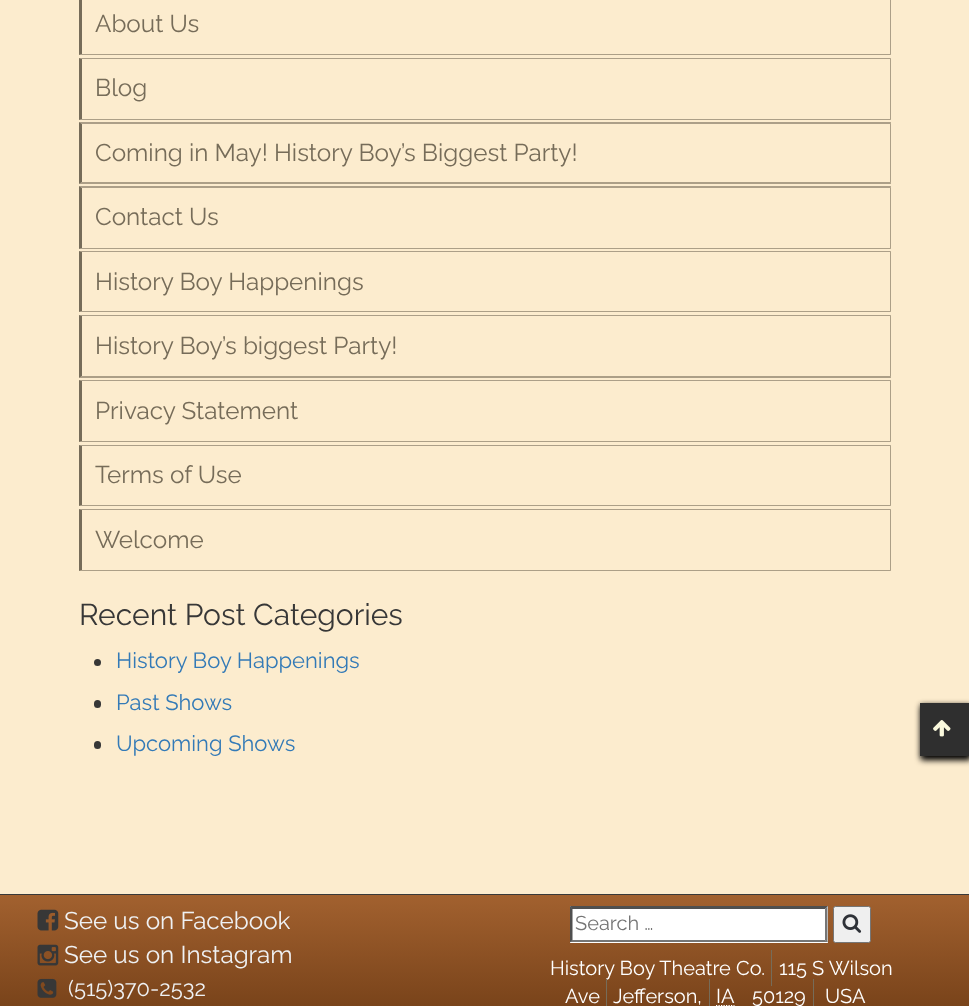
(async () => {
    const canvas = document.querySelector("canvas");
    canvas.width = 969;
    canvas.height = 1006;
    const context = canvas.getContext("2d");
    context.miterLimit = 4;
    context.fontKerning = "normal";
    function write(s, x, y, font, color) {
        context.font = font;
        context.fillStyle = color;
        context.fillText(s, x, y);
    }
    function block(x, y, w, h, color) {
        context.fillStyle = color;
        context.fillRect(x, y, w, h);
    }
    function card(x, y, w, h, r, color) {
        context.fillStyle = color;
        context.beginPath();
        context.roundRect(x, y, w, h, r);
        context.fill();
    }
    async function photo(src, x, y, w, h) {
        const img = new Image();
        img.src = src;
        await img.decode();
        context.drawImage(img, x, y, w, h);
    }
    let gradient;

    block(0, 0, 969, 1006, "rgb(252, 236, 206)");
    context.fillStyle = "rgb(172, 159, 136)";
    context.beginPath();
    context.moveTo(891, -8);
    context.lineTo(891, 55);
    context.lineTo(890, 54);
    context.lineTo(890, -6);
    context.closePath();
    context.fill();
    context.fillStyle = "rgba(118, 108, 89, 0.6)";
    context.beginPath();
    context.moveTo(891, 55);
    context.lineTo(79, 55);
    context.lineTo(82, 54);
    context.lineTo(890, 54);
    context.closePath();
    context.fill();
    context.fillStyle = "rgb(118, 108, 89)";
    context.beginPath();
    context.moveTo(79, 55);
    context.lineTo(79, -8);
    context.lineTo(82, -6);
    context.lineTo(82, 54);
    context.closePath();
    context.fill();
    write("About Us", 95, 32, "100 24.25px Raleway", "rgb(118, 108, 89)");
    context.fillStyle = "rgb(172, 159, 136)";
    context.beginPath();
    context.moveTo(79, 58);
    context.lineTo(891, 58);
    context.lineTo(890, 59);
    context.lineTo(82, 59);
    context.closePath();
    context.fill();
    context.fillStyle = "rgba(118, 108, 89, 0.6)";
    context.beginPath();
    context.moveTo(891, 58);
    context.lineTo(891, 120);
    context.lineTo(890, 119);
    context.lineTo(890, 59);
    context.closePath();
    context.fill();
    context.beginPath();
    context.moveTo(891, 120);
    context.lineTo(79, 120);
    context.lineTo(82, 119);
    context.lineTo(890, 119);
    context.closePath();
    context.fill();
    context.fillStyle = "rgb(118, 108, 89)";
    context.beginPath();
    context.moveTo(79, 120);
    context.lineTo(79, 58);
    context.lineTo(82, 59);
    context.lineTo(82, 119);
    context.closePath();
    context.fill();
    write("Blog", 95, 96, "100 24.25px Raleway", "rgb(118, 108, 89)");
    context.fillStyle = "rgb(172, 159, 136)";
    context.beginPath();
    context.moveTo(79, 122);
    context.lineTo(891, 122);
    context.lineTo(890, 124);
    context.lineTo(82, 124);
    context.closePath();
    context.fill();
    context.fillStyle = "rgba(118, 108, 89, 0.6)";
    context.beginPath();
    context.moveTo(891, 122);
    context.lineTo(891, 184);
    context.lineTo(890, 182);
    context.lineTo(890, 124);
    context.closePath();
    context.fill();
    context.beginPath();
    context.moveTo(891, 184);
    context.lineTo(79, 184);
    context.lineTo(82, 182);
    context.lineTo(890, 182);
    context.closePath();
    context.fill();
    context.fillStyle = "rgb(118, 108, 89)";
    context.beginPath();
    context.moveTo(79, 184);
    context.lineTo(79, 122);
    context.lineTo(82, 124);
    context.lineTo(82, 182);
    context.closePath();
    context.fill();
    write("Coming in May! History Boy’s Biggest Party!", 95, 161, "100 24.25px Raleway", "rgb(118, 108, 89)");
    context.fillStyle = "rgb(172, 159, 136)";
    context.beginPath();
    context.moveTo(79, 186);
    context.lineTo(891, 186);
    context.lineTo(890, 188);
    context.lineTo(82, 188);
    context.closePath();
    context.fill();
    context.fillStyle = "rgba(118, 108, 89, 0.6)";
    context.beginPath();
    context.moveTo(891, 186);
    context.lineTo(891, 249);
    context.lineTo(890, 248);
    context.lineTo(890, 188);
    context.closePath();
    context.fill();
    context.beginPath();
    context.moveTo(891, 249);
    context.lineTo(79, 249);
    context.lineTo(82, 248);
    context.lineTo(890, 248);
    context.closePath();
    context.fill();
    context.fillStyle = "rgb(118, 108, 89)";
    context.beginPath();
    context.moveTo(79, 249);
    context.lineTo(79, 186);
    context.lineTo(82, 188);
    context.lineTo(82, 248);
    context.closePath();
    context.fill();
    write("Contact Us", 95, 225, "100 24.25px Raleway", "rgb(118, 108, 89)");
    context.fillStyle = "rgb(172, 159, 136)";
    context.beginPath();
    context.moveTo(79, 251);
    context.lineTo(891, 251);
    context.lineTo(890, 252);
    context.lineTo(82, 252);
    context.closePath();
    context.fill();
    context.fillStyle = "rgba(118, 108, 89, 0.6)";
    context.beginPath();
    context.moveTo(891, 251);
    context.lineTo(891, 312);
    context.lineTo(890, 311);
    context.lineTo(890, 252);
    context.closePath();
    context.fill();
    context.beginPath();
    context.moveTo(891, 312);
    context.lineTo(79, 312);
    context.lineTo(82, 311);
    context.lineTo(890, 311);
    context.closePath();
    context.fill();
    context.fillStyle = "rgb(118, 108, 89)";
    context.beginPath();
    context.moveTo(79, 312);
    context.lineTo(79, 251);
    context.lineTo(82, 252);
    context.lineTo(82, 311);
    context.closePath();
    context.fill();
    write("History Boy Happenings", 95, 290, "100 24.25px Raleway", "rgb(118, 108, 89)");
    context.fillStyle = "rgb(172, 159, 136)";
    context.beginPath();
    context.moveTo(79, 315);
    context.lineTo(891, 315);
    context.lineTo(890, 316);
    context.lineTo(82, 316);
    context.closePath();
    context.fill();
    context.fillStyle = "rgba(118, 108, 89, 0.6)";
    context.beginPath();
    context.moveTo(891, 315);
    context.lineTo(891, 378);
    context.lineTo(890, 376);
    context.lineTo(890, 316);
    context.closePath();
    context.fill();
    context.beginPath();
    context.moveTo(891, 378);
    context.lineTo(79, 378);
    context.lineTo(82, 376);
    context.lineTo(890, 376);
    context.closePath();
    context.fill();
    context.fillStyle = "rgb(118, 108, 89)";
    context.beginPath();
    context.moveTo(79, 378);
    context.lineTo(79, 315);
    context.lineTo(82, 316);
    context.lineTo(82, 376);
    context.closePath();
    context.fill();
    write("History Boy’s biggest Party!", 95, 354, "100 24.25px Raleway", "rgb(118, 108, 89)");
    context.fillStyle = "rgb(172, 159, 136)";
    context.beginPath();
    context.moveTo(79, 380);
    context.lineTo(891, 380);
    context.lineTo(890, 381);
    context.lineTo(82, 381);
    context.closePath();
    context.fill();
    context.fillStyle = "rgba(118, 108, 89, 0.6)";
    context.beginPath();
    context.moveTo(891, 380);
    context.lineTo(891, 442);
    context.lineTo(890, 441);
    context.lineTo(890, 381);
    context.closePath();
    context.fill();
    context.beginPath();
    context.moveTo(891, 442);
    context.lineTo(79, 442);
    context.lineTo(82, 441);
    context.lineTo(890, 441);
    context.closePath();
    context.fill();
    context.fillStyle = "rgb(118, 108, 89)";
    context.beginPath();
    context.moveTo(79, 442);
    context.lineTo(79, 380);
    context.lineTo(82, 381);
    context.lineTo(82, 441);
    context.closePath();
    context.fill();
    write("Privacy Statement", 95, 419, "100 24.25px Raleway", "rgb(118, 108, 89)");
    context.fillStyle = "rgb(172, 159, 136)";
    context.beginPath();
    context.moveTo(79, 445);
    context.lineTo(891, 445);
    context.lineTo(890, 446);
    context.lineTo(82, 446);
    context.closePath();
    context.fill();
    context.fillStyle = "rgba(118, 108, 89, 0.6)";
    context.beginPath();
    context.moveTo(891, 445);
    context.lineTo(891, 506);
    context.lineTo(890, 505);
    context.lineTo(890, 446);
    context.closePath();
    context.fill();
    context.beginPath();
    context.moveTo(891, 506);
    context.lineTo(79, 506);
    context.lineTo(82, 505);
    context.lineTo(890, 505);
    context.closePath();
    context.fill();
    context.fillStyle = "rgb(118, 108, 89)";
    context.beginPath();
    context.moveTo(79, 506);
    context.lineTo(79, 445);
    context.lineTo(82, 446);
    context.lineTo(82, 505);
    context.closePath();
    context.fill();
    write("Terms of Use", 95, 483, "100 24.25px Raleway", "rgb(118, 108, 89)");
    context.fillStyle = "rgb(172, 159, 136)";
    context.beginPath();
    context.moveTo(79, 509);
    context.lineTo(891, 509);
    context.lineTo(890, 510);
    context.lineTo(82, 510);
    context.closePath();
    context.fill();
    context.fillStyle = "rgba(118, 108, 89, 0.6)";
    context.beginPath();
    context.moveTo(891, 509);
    context.lineTo(891, 571);
    context.lineTo(890, 570);
    context.lineTo(890, 510);
    context.closePath();
    context.fill();
    context.beginPath();
    context.moveTo(891, 571);
    context.lineTo(79, 571);
    context.lineTo(82, 570);
    context.lineTo(890, 570);
    context.closePath();
    context.fill();
    context.fillStyle = "rgb(118, 108, 89)";
    context.beginPath();
    context.moveTo(79, 571);
    context.lineTo(79, 509);
    context.lineTo(82, 510);
    context.lineTo(82, 570);
    context.closePath();
    context.fill();
    write("Welcome", 95, 548, "100 24.25px Raleway", "rgb(118, 108, 89)");
    write("Recent Post Categories", 79, 625, "100 30px Raleway", "rgb(55, 55, 55)");
    context.beginPath();
    context.arc(97.5, 662.5, 3.5, 0, Math.PI * 2);
    context.fill();
    write("History Boy Happenings", 116, 668, "100 22px Raleway", "rgb(51, 122, 183)");
    card(94, 700, 7, 8, 3.5, "rgb(55, 55, 55)");
    write("Past Shows", 116, 710, "100 22px Raleway", "rgb(51, 122, 183)");
    card(94, 741, 7, 8, 3.5, "rgb(55, 55, 55)");
    write("Upcoming Shows", 116, 751, "100 22px Raleway", "rgb(51, 122, 183)");
    context.fillStyle = "rgb(0, 0, 0)";
    context.filter = "blur(3px)";
    context.beginPath();
    context.rect(921, 706, 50, 54);
    context.fill();
    context.filter = "none";
    context.fillStyle = "rgba(0, 0, 0, 0.3)";
    context.filter = "blur(2.5px)";
    context.beginPath();
    context.rect(920, 704, 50, 54);
    context.fill();
    context.filter = "none";
    block(920, 703, 49, 53, "rgb(47, 47, 47)");
    await photo("media/1.png", 933, 720, 18, 17);
    gradient = context.createLinearGradient(485, 895, 485, 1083);
    gradient.addColorStop(0, "rgb(162, 97, 47)");
    gradient.addColorStop(1, "rgb(93, 47, 12)");
    context.fillStyle = gradient;
    context.fillRect(0, 895, 969, 111);
    block(0, 894, 969, 1, "rgb(57, 57, 57)");
    await photo("media/2.png", 37, 909, 22, 22);
    write("See us on Facebook", 64, 929, "100 24.25px Raleway", "rgb(239, 241, 243)");
    await photo("media/3.png", 37, 944, 22, 22);
    write("See us on Instagram", 64, 963, "100 24.25px Raleway", "rgb(239, 241, 243)");
    await photo("media/4.png", 37, 978, 20, 20);
    write("(515)370-2532", 68, 996, "100 22px Raleway", "rgb(239, 241, 243)");
    block(570, 906, 258, 37, "rgb(255, 255, 255)");
    context.fillStyle = "rgb(79, 79, 79)";
    context.beginPath();
    context.moveTo(570, 906);
    context.lineTo(828, 906);
    context.lineTo(825, 909);
    context.lineTo(572, 909);
    context.closePath();
    context.fill();
    context.fillStyle = "rgb(118, 118, 118)";
    context.beginPath();
    context.moveTo(827.5, 906);
    context.lineTo(827.5, 942.5);
    context.lineTo(825, 940);
    context.lineTo(825, 909);
    context.closePath();
    context.fill();
    context.beginPath();
    context.moveTo(828, 942);
    context.lineTo(570, 942);
    context.lineTo(572, 940);
    context.lineTo(825, 940);
    context.closePath();
    context.fill();
    context.fillStyle = "rgb(79, 79, 79)";
    context.beginPath();
    context.moveTo(570, 942.5);
    context.lineTo(570, 906);
    context.lineTo(572.5, 909);
    context.lineTo(572.5, 940);
    context.closePath();
    context.fill();
    write("Search …", 575, 930, "100 20px Raleway", "rgb(117, 117, 117)");
    context.fillStyle = "rgb(239, 239, 239)";
    context.beginPath();
    context.roundRect(833.5, 906.5, 37, 36, 2);
    context.fill();
    context.strokeStyle = "rgb(118, 118, 118)";
    context.stroke();
    await photo("media/5.png", 842, 914, 20, 19);
    write("History Boy Theatre Co.", 550, 975, "100 20px Raleway", "rgb(255, 255, 255)");
    block(771, 950, 1, 36, "rgb(118, 108, 89)");
    write("115 S Wilson", 779, 975, "100 20px Raleway", "rgb(255, 255, 255)");
    write("Ave", 565, 1003, "100 20px Raleway", "rgb(255, 255, 255)");
    block(606, 979, 1, 27, "rgb(118, 108, 89)");
    write("Jefferson,", 613, 1003, "100 20px Raleway", "rgb(255, 255, 255)");
    block(709, 979, 1, 27, "rgb(118, 108, 89)");
    write("IA", 716, 1003, "100 20px Raleway", "rgb(255, 255, 255)");
    context.beginPath();
    context.moveTo(716, 1005.5);
    context.lineTo(734.5, 1005.5);
    context.strokeStyle = "rgb(255, 255, 255)";
    context.lineWidth = 1.2;
    context.setLineDash([1.25, 1.25]);
    context.stroke();
    write("50129", 752, 1003, "100 20px Raleway", "rgb(255, 255, 255)");
    block(813, 979, 1, 27, "rgb(118, 108, 89)");
    write("USA", 825, 1003, "100 20px Raleway", "rgb(255, 255, 255)");
})();
